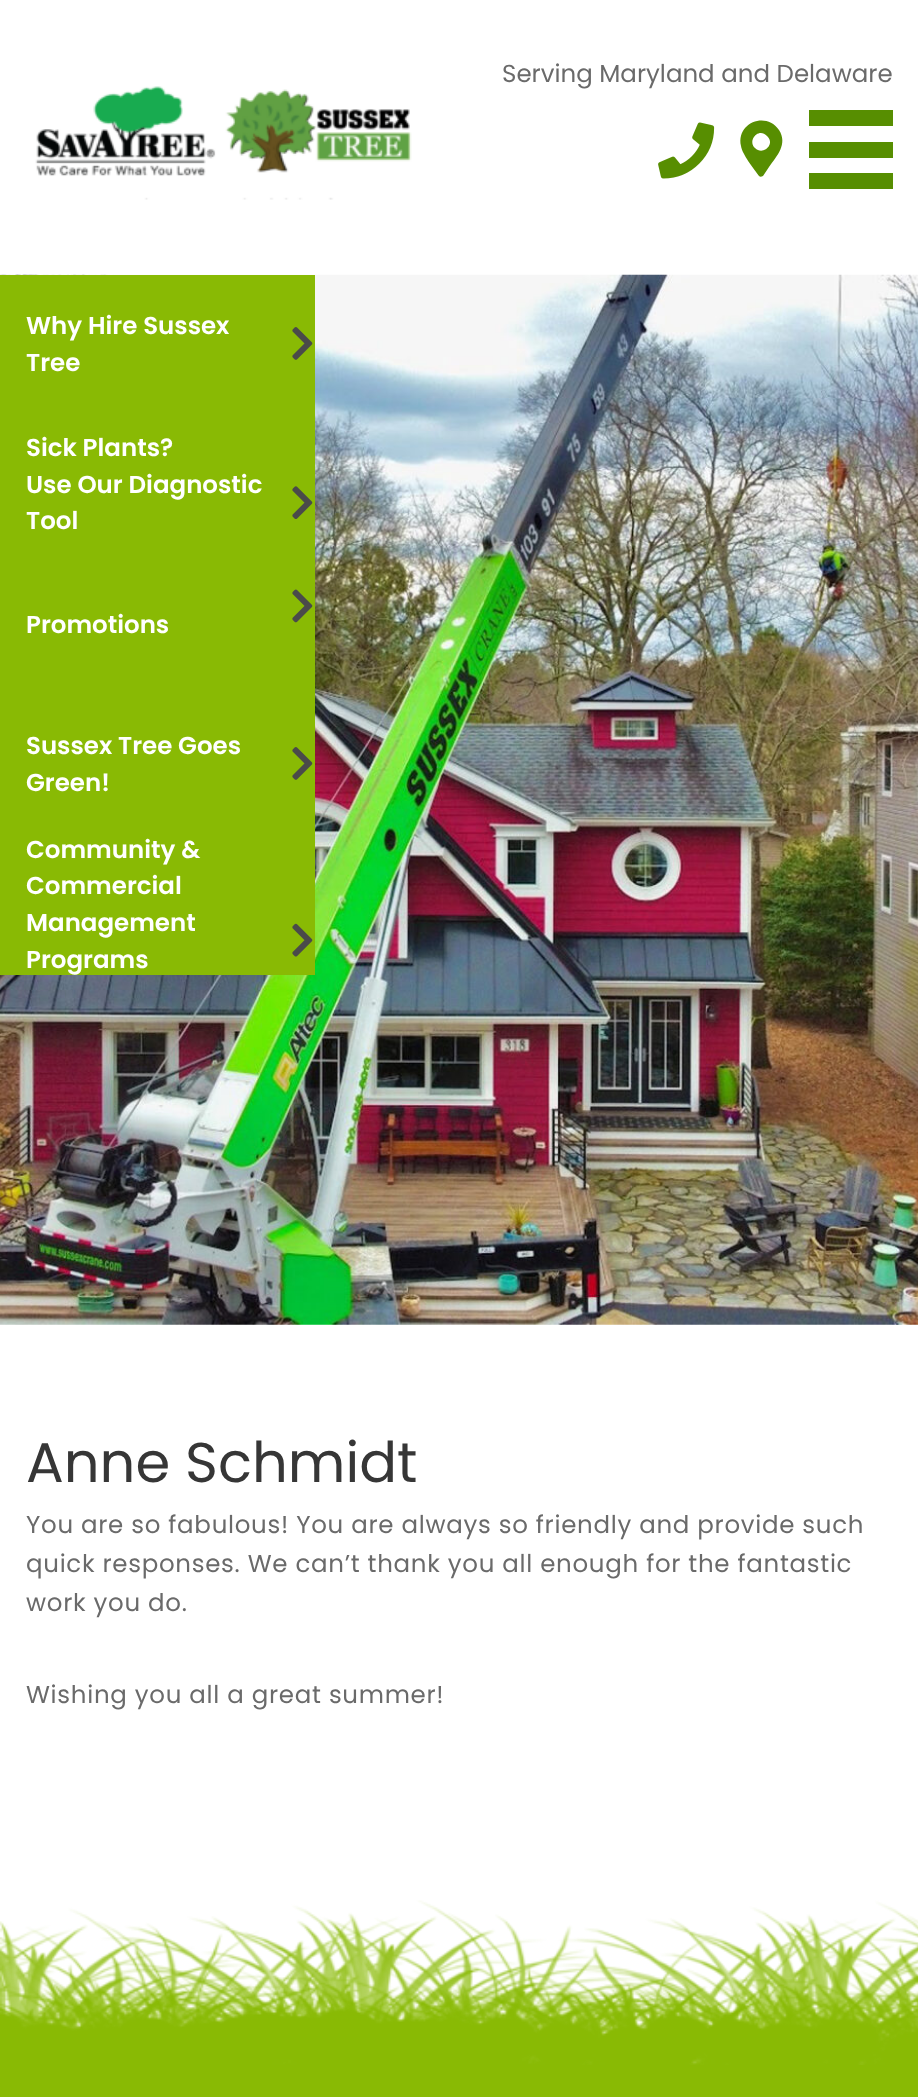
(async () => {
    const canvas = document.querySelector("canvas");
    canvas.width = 918;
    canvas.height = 2097;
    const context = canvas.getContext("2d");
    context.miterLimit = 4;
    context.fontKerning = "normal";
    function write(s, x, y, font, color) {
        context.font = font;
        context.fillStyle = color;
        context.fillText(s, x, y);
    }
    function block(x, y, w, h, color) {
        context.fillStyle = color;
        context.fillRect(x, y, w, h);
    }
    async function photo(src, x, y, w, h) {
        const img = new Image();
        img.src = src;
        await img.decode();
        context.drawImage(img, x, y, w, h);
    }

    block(0, 0, 918, 2097, "rgb(255, 255, 255)");
    write("Serving Maryland and Delaware", 502, 82, "24.5px Poppins", "rgb(106, 106, 106)");
    await photo("media/1.png", 658, 122, 57, 57);
    context.fillStyle = "rgb(87, 142, 1)";
    context.beginPath();
    context.moveTo(759, 176);
    context.bezierCurveTo(754, 169, 742, 154, 741, 146);
    context.bezierCurveTo(736, 123, 766, 111, 779, 130);
    context.bezierCurveTo(788, 144, 777, 156, 769, 167);
    context.lineTo(763, 176);
    context.bezierCurveTo(761, 177, 760, 177, 759, 176);
    context.closePath();
    context.moveTo(755, 148);
    context.bezierCurveTo(763, 156, 776, 144, 767, 136);
    context.bezierCurveTo(759, 127, 747, 140, 755, 148);
    context.closePath();
    context.fill();
    block(809, 110, 84, 16, "rgb(87, 142, 1)");
    block(809, 142, 84, 16, "rgb(87, 142, 1)");
    block(809, 173, 84, 16, "rgb(87, 142, 1)");
    await photo("media/2.png", 35, 86, 377, 114);
    await photo("media/7.png", 0, 274, 918, 1051);
    block(0, 275, 315, 700, "rgb(137, 186, 4)");
    write("Why Hire Sussex", 26, 334, "600 24.5px Poppins", "rgb(255, 255, 255)");
    await photo("media/3.png", 292, 327, 21, 33);
    write("Tree", 26, 371, "600 24.5px Poppins", "rgb(255, 255, 255)");
    write("Sick Plants?", 26, 456, "600 24.5px Poppins", "rgb(255, 255, 255)");
    write("Use Our Diagnostic", 26, 493, "600 24.5px Poppins", "rgb(255, 255, 255)");
    await photo("media/4.png", 292, 486, 21, 33);
    write("Tool", 26, 529, "600 24.5px Poppins", "rgb(255, 255, 255)");
    write("Promotions", 26, 633, "600 24.5px Poppins", "rgb(255, 255, 255)");
    await photo("media/5.png", 292, 589, 21, 34);
    write("Sussex Tree Goes", 26, 754, "600 24.5px Poppins", "rgb(255, 255, 255)");
    await photo("media/3.png", 292, 747, 21, 33);
    write("Green!", 26, 791, "600 24.5px Poppins", "rgb(255, 255, 255)");
    write("Community &", 26, 858, "600 24.5px Poppins", "rgb(255, 255, 255)");
    write("Commercial", 26, 894, "600 24.5px Poppins", "rgb(255, 255, 255)");
    write("Management", 26, 931, "600 24.5px Poppins", "rgb(255, 255, 255)");
    await photo("media/6.png", 292, 923, 21, 34);
    write("Programs", 26, 968, "600 24.5px Poppins", "rgb(255, 255, 255)");
    write("Anne Schmidt", 26, 1482, "56px Poppins", "rgb(54, 54, 54)");
    context.letterSpacing = "0.7px";
    write("You are so fabulous! You are always so friendly and provide such", 26, 1533, "24.5px Poppins", "rgb(106, 106, 106)");
    write("quick responses. We can’t thank you all enough for the fantastic", 26, 1572, "24.5px Poppins", "rgb(106, 106, 106)");
    write("work you do.", 26, 1611, "24.5px Poppins", "rgb(106, 106, 106)");
    write("Wishing you all a great summer!", 26, 1703, "24.5px Poppins", "rgb(106, 106, 106)");
    await photo("media/8.png", 0, 1900, 918, 165);
    block(0, 2065, 918, 32, "rgb(137, 186, 4)");
})();
